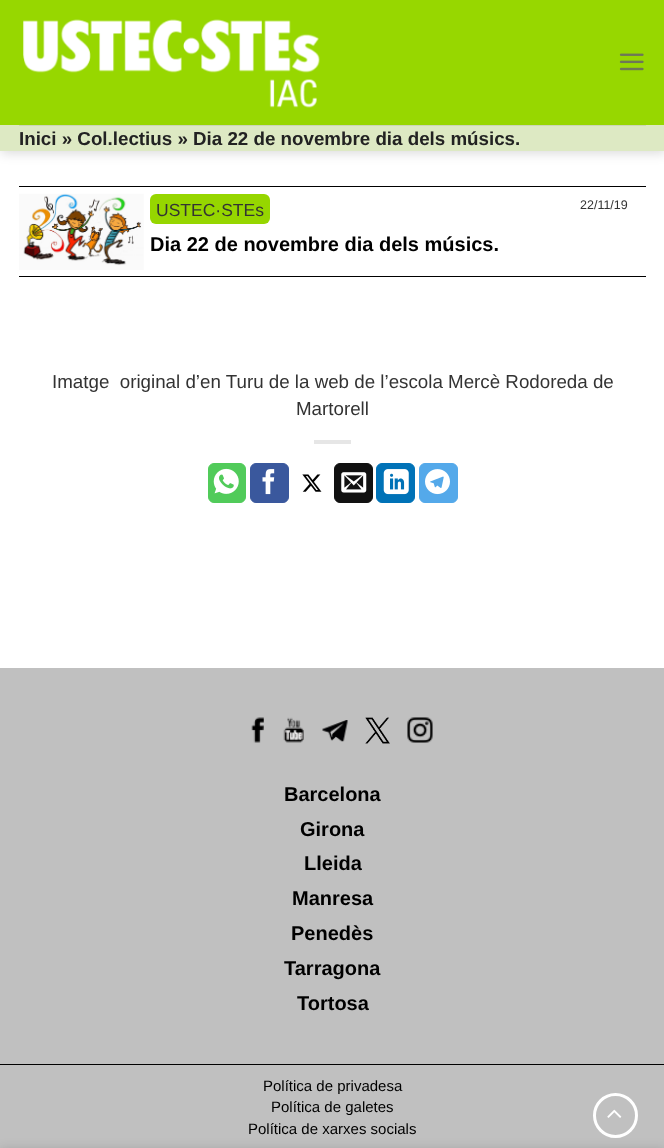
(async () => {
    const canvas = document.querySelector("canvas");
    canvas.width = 664;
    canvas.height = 1148;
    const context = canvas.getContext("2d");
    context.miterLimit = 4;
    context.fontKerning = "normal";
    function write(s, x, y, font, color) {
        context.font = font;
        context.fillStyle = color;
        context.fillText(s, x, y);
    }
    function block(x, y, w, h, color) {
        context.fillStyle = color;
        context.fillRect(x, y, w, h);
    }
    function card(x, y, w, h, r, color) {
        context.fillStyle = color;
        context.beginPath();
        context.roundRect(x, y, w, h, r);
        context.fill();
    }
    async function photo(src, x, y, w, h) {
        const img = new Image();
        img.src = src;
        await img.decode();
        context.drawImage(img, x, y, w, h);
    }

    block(0, 0, 664, 1148, "rgb(255, 255, 255)");
    context.fillStyle = "rgba(0, 0, 0, 0.15)";
    context.filter = "blur(6px)";
    context.beginPath();
    context.rect(1, 1, 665, 152);
    context.fill();
    context.filter = "none";
    block(0, 0, 664, 125, "rgb(151, 215, 0)");
    await photo("media/1.png", 23, 19, 297, 89);
    await photo("media/2.png", 619, 53, 25, 18);
    block(0, 125, 664, 26, "rgb(221, 233, 195)");
    block(19, 125, 627, 1, "rgb(204, 215, 181)");
    write("Inici » Col.lectius » Dia 22 de novembre dia dels músics.", 19, 145, "bold 18.75px Liberation Sans", "rgb(34, 34, 34)");
    block(19, 186, 627, 1, "rgb(0, 0, 0)");
    block(19, 276, 627, 1, "rgb(0, 0, 0)");
    await photo("media/3.png", 19, 193, 125, 77);
    card(150, 194, 120, 30, 6, "rgb(150, 214, 0)");
    write("USTEC·STEs", 156, 216, "17.5px Liberation Sans", "rgb(51, 51, 51)");
    write("22/11/19", 580, 209, "12.5px Liberation Sans", "rgb(51, 51, 51)");
    write("Dia 22 de novembre dia dels músics.", 150, 251, "bold 20px Liberation Sans", "rgb(0, 0, 0)");
    write("Imatge  original d’en Turu de la web de l’escola Mercè Rodoreda de", 52, 388, "18.75px Liberation Sans", "rgb(51, 51, 51)");
    write("Martorell", 296, 415, "18.75px Liberation Sans", "rgb(51, 51, 51)");
    block(314, 440, 37, 4, "rgb(230, 230, 230)");
    context.fillStyle = "rgb(81, 203, 90)";
    context.beginPath();
    context.roundRect(208.5, 463.5, 37, 39, 5.5);
    context.fill();
    context.strokeStyle = "rgb(81, 203, 90)";
    context.stroke();
    await photo("media/4.png", 213, 468, 26, 26);
    context.fillStyle = "rgb(58, 88, 157)";
    context.beginPath();
    context.roundRect(250.5, 463.5, 38, 39, 5.5);
    context.fill();
    context.strokeStyle = "rgb(58, 88, 157)";
    context.stroke();
    await photo("media/5.png", 262, 469, 13, 26);
    await photo("media/6.png", 302, 474, 20, 18);
    context.fillStyle = "rgb(17, 17, 17)";
    context.beginPath();
    context.roundRect(334.5, 463.5, 38, 39, 5.5);
    context.fill();
    context.strokeStyle = "rgb(17, 17, 17)";
    context.stroke();
    await photo("media/7.png", 341, 472, 26, 21);
    context.fillStyle = "rgb(0, 114, 183)";
    context.beginPath();
    context.roundRect(376.5, 463.5, 38, 39, 5.5);
    context.fill();
    context.strokeStyle = "rgb(0, 114, 183)";
    context.stroke();
    await photo("media/8.png", 383, 469, 26, 26);
    context.fillStyle = "rgb(84, 169, 234)";
    context.beginPath();
    context.roundRect(419.5, 463.5, 38, 39, 5.5);
    context.fill();
    context.strokeStyle = "rgb(84, 169, 234)";
    context.stroke();
    await photo("media/9.png", 425, 469, 25, 26);
    block(0, 668, 664, 480, "rgb(192, 192, 192)");
    await photo("media/10.png", 251, 717, 13, 26);
    await photo("media/11.png", 283, 717, 21, 26);
    await photo("media/12.png", 322, 720, 26, 22);
    await photo("media/13.png", 365, 717, 25, 27);
    await photo("media/14.png", 407, 717, 26, 26);
    write("Barcelona", 284, 801, "bold 20px Liberation Sans", "rgb(0, 0, 0)");
    write("Girona", 300, 836, "bold 20px Liberation Sans", "rgb(0, 0, 0)");
    write("Lleida", 304, 870, "bold 20px Liberation Sans", "rgb(0, 0, 0)");
    write("Manresa", 292, 905, "bold 20px Liberation Sans", "rgb(0, 0, 0)");
    write("Penedès", 291, 940, "bold 20px Liberation Sans", "rgb(0, 0, 0)");
    write("Tarragona", 284, 975, "bold 20px Liberation Sans", "rgb(0, 0, 0)");
    write("Tortosa", 297, 1010, "bold 20px Liberation Sans", "rgb(0, 0, 0)");
    block(0, 1064, 664, 1, "rgb(0, 0, 0)");
    write("Política de privadesa", 263, 1091, "15px Liberation Sans", "rgb(0, 0, 0)");
    write("Política de galetes", 271, 1112, "15px Liberation Sans", "rgb(0, 0, 0)");
    write("Política de xarxes socials", 248, 1134, "15px Liberation Sans", "rgb(0, 0, 0)");
    context.beginPath();
    context.arc(615.5, 1115.5, 21, 0, Math.PI * 2);
    context.strokeStyle = "rgb(255, 255, 255)";
    context.lineWidth = 3;
    context.stroke();
    await photo("media/15.png", 607, 1109, 15, 9);
    context.fillStyle = "rgba(0, 0, 0, 0.14)";
    context.filter = "blur(5.5px)";
    context.beginPath();
    context.rect(0, 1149, 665, 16);
    context.fill();
    context.filter = "none";
})();
